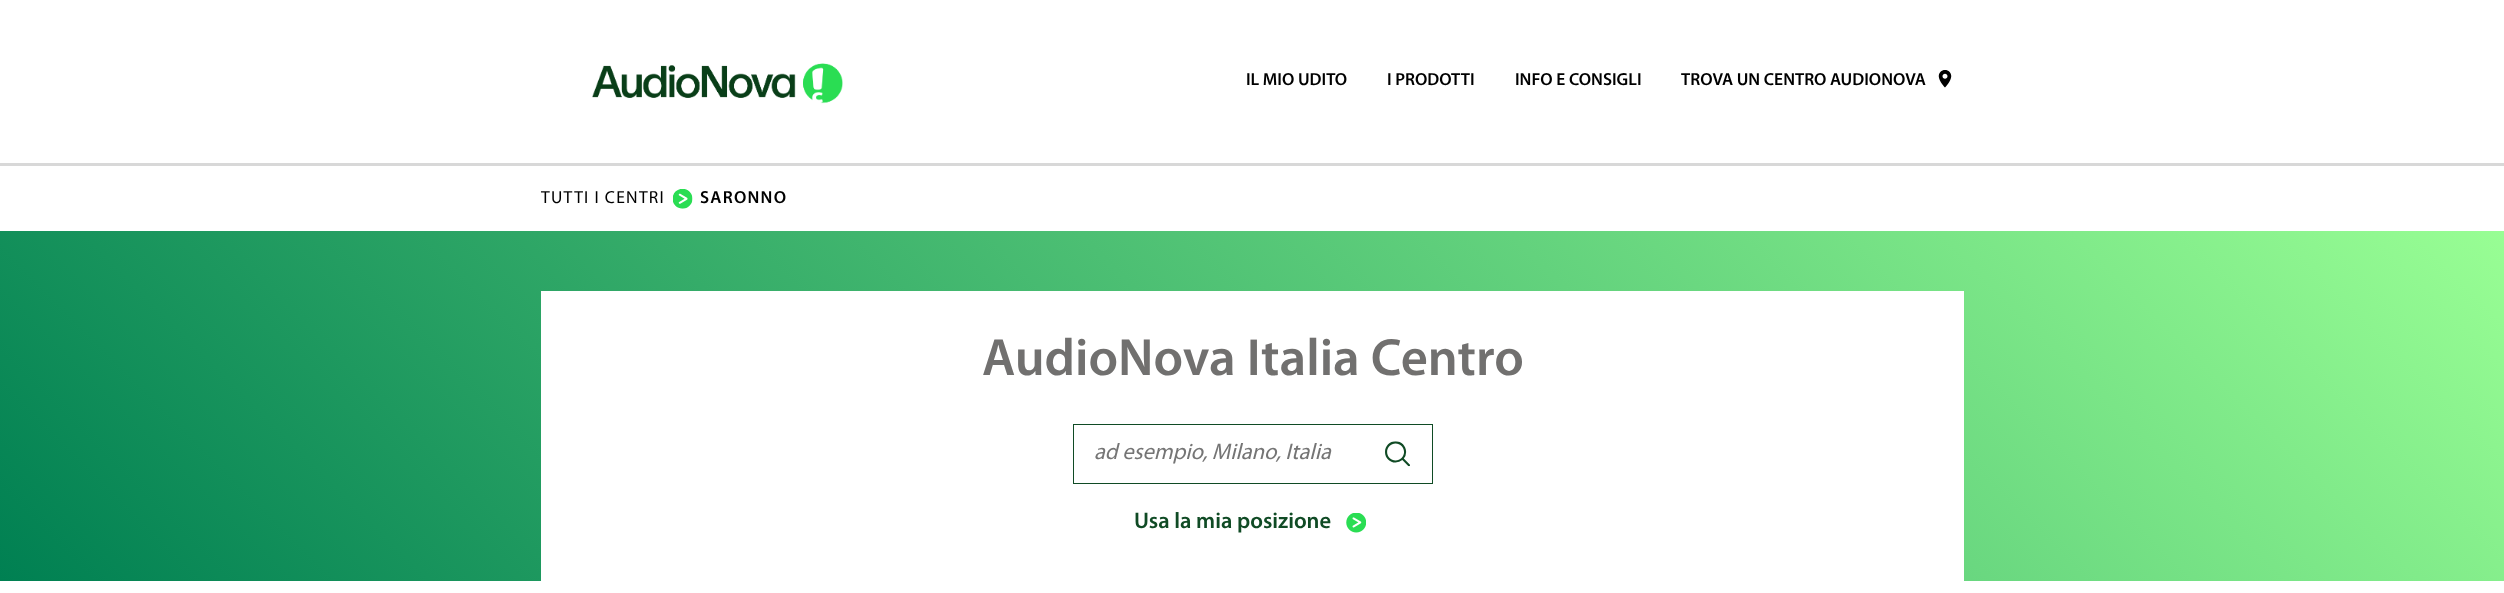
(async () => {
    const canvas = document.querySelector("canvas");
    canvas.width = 2504;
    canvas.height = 593;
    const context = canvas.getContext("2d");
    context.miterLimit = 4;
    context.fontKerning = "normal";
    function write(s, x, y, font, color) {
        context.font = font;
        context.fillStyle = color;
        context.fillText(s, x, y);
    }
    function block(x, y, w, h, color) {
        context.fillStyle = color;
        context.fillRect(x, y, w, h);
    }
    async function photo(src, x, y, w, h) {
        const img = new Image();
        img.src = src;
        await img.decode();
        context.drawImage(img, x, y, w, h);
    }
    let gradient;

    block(0, 0, 2504, 593, "rgb(255, 255, 255)");
    block(0, 163, 2504, 3, "rgb(216, 216, 216)");
    await photo("media/1.png", 592, 63, 251, 41);
    write("IL MIO UDITO", 1246, 85, "600 17.5px Myriad", "rgb(0, 0, 0)");
    write("I PRODOTTI", 1387, 85, "600 17.5px Myriad", "rgb(0, 0, 0)");
    write("INFO E CONSIGLI", 1515, 85, "600 17.5px Myriad", "rgb(0, 0, 0)");
    write("TROVA UN CENTRO AUDIONOVA", 1681, 85, "600 17.5px Myriad", "rgb(0, 0, 0)");
    await photo("media/2.png", 1938, 70, 14, 18);
    context.letterSpacing = "1.25px";
    write("TUTTI I CENTRI", 541, 203, "17.5px Myriad", "rgb(0, 0, 0)");
    await photo("media/3.png", 673, 189, 20, 20);
    write("SARONNO", 700, 203, "600 17.5px Myriad", "rgb(0, 0, 0)");
    gradient = context.createLinearGradient(539, 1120, 1966, -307);
    gradient.addColorStop(0, "rgb(0, 128, 82)");
    gradient.addColorStop(1, "rgb(152, 254, 148)");
    context.fillStyle = gradient;
    context.fillRect(0, 231, 2504, 350);
    block(541, 291, 1423, 290, "rgb(255, 255, 255)");
    context.letterSpacing = "0px";
    write("AudioNova Italia Centro", 982, 375, "600 52.5px Myriad", "rgb(113, 112, 111)");
    context.strokeStyle = "rgb(16, 75, 37)";
    context.strokeRect(1073.5, 424.5, 359, 59);
    write("ad esempio, Milano, Italia", 1094, 459, "italic 22.5px Myriad", "rgb(117, 117, 117)");
    await photo("media/4.png", 1385, 441, 25, 26);
    write("Usa la mia posizione", 1134, 528, "600 22.5px Myriad", "rgb(16, 75, 37)");
    await photo("media/5.png", 1346, 513, 20, 20);
})();
